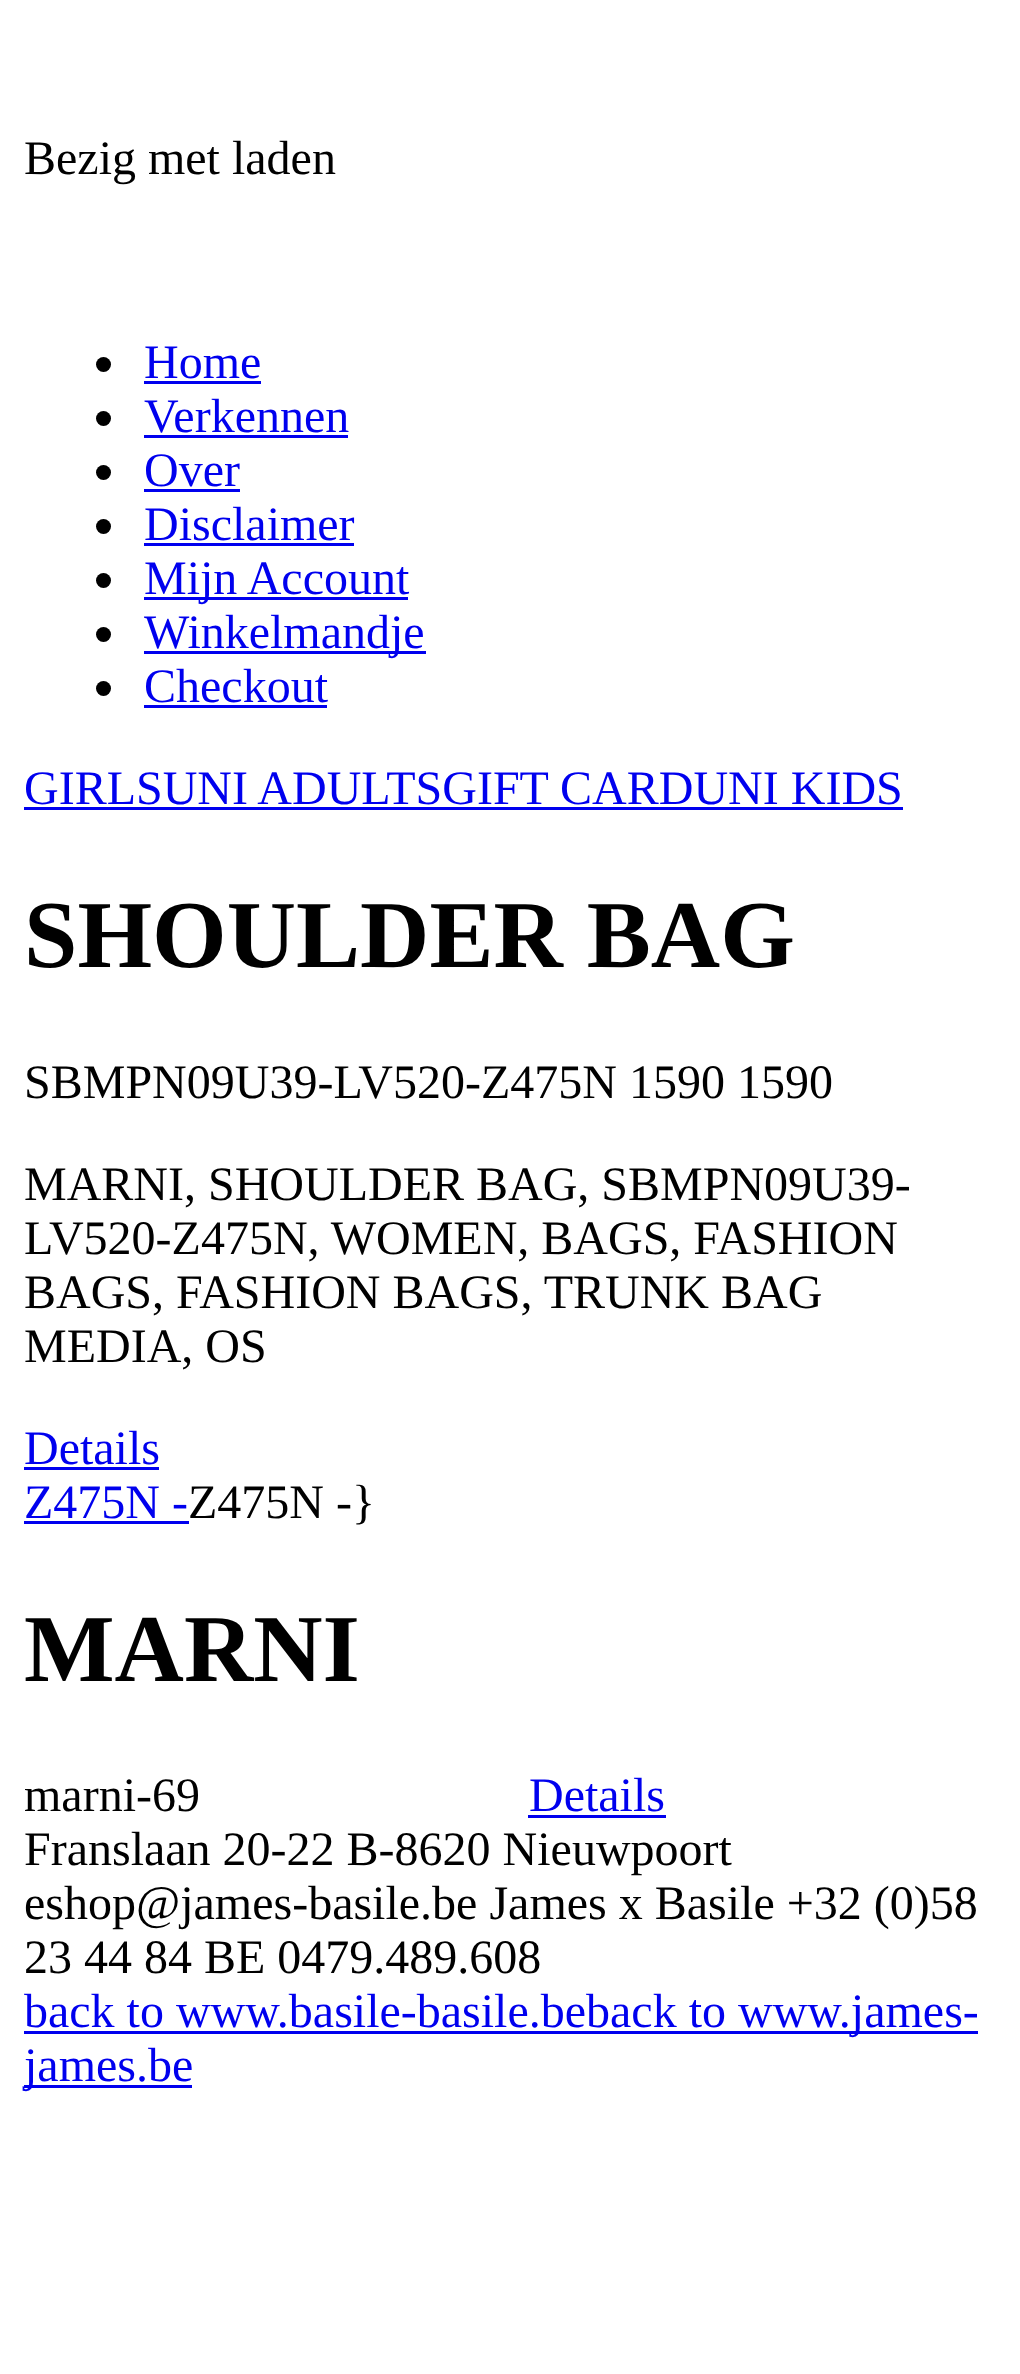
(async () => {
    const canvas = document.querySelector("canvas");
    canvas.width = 1020;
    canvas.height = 2374;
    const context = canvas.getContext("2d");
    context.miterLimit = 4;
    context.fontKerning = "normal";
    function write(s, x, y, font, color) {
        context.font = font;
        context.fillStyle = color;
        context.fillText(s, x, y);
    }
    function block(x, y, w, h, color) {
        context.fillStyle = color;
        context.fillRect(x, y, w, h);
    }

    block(0, 0, 1020, 2374, "rgb(255, 255, 255)");
    write("Bezig met laden", 24, 174, "48px Liberation Serif", "rgb(0, 0, 0)");
    context.beginPath();
    context.arc(103.5, 364.5, 7.5, 0, Math.PI * 2);
    context.fill();
    write("Home", 144, 378, "48px Liberation Serif", "rgb(0, 0, 238)");
    block(144, 381, 117, 3, "rgb(0, 0, 238)");
    context.fillStyle = "rgb(0, 0, 0)";
    context.beginPath();
    context.arc(103.5, 418.5, 7.5, 0, Math.PI * 2);
    context.fill();
    write("Verkennen", 144, 432, "48px Liberation Serif", "rgb(0, 0, 238)");
    block(144, 435, 204, 3, "rgb(0, 0, 238)");
    context.fillStyle = "rgb(0, 0, 0)";
    context.beginPath();
    context.arc(103.5, 472.5, 7.5, 0, Math.PI * 2);
    context.fill();
    write("Over", 144, 486, "48px Liberation Serif", "rgb(0, 0, 238)");
    block(144, 489, 96, 3, "rgb(0, 0, 238)");
    context.fillStyle = "rgb(0, 0, 0)";
    context.beginPath();
    context.arc(103.5, 526.5, 7.5, 0, Math.PI * 2);
    context.fill();
    write("Disclaimer", 144, 540, "48px Liberation Serif", "rgb(0, 0, 238)");
    block(144, 543, 210, 3, "rgb(0, 0, 238)");
    context.fillStyle = "rgb(0, 0, 0)";
    context.beginPath();
    context.arc(103.5, 580.5, 7.5, 0, Math.PI * 2);
    context.fill();
    block(144, 597, 264, 3, "rgb(0, 0, 238)");
    write("Mijn Account", 144, 594, "48px Liberation Serif", "rgb(0, 0, 238)");
    context.fillStyle = "rgb(0, 0, 0)";
    context.beginPath();
    context.arc(103.5, 634.5, 7.5, 0, Math.PI * 2);
    context.fill();
    block(144, 651, 282, 3, "rgb(0, 0, 238)");
    write("Winkelmandje", 144, 648, "48px Liberation Serif", "rgb(0, 0, 238)");
    context.fillStyle = "rgb(0, 0, 0)";
    context.beginPath();
    context.arc(103.5, 688.5, 7.5, 0, Math.PI * 2);
    context.fill();
    write("Checkout", 144, 702, "48px Liberation Serif", "rgb(0, 0, 238)");
    block(144, 705, 183, 3, "rgb(0, 0, 238)");
    write("GIRLSUNI ADULTSGIFT CARDUNI KIDS", 24, 804, "48px Liberation Serif", "rgb(0, 0, 238)");
    block(24, 807, 879, 3, "rgb(0, 0, 238)");
    write("SHOULDER BAG", 24, 967, "bold 96px Liberation Serif", "rgb(0, 0, 0)");
    write("SBMPN09U39-LV520-Z475N 1590 1590", 24, 1098, "48px Liberation Serif", "rgb(0, 0, 0)");
    write("MARNI, SHOULDER BAG, SBMPN09U39-", 24, 1200, "48px Liberation Serif", "rgb(0, 0, 0)");
    write("LV520-Z475N, WOMEN, BAGS, FASHION", 24, 1254, "48px Liberation Serif", "rgb(0, 0, 0)");
    write("BAGS, FASHION BAGS, TRUNK BAG", 24, 1308, "48px Liberation Serif", "rgb(0, 0, 0)");
    write("MEDIA, OS", 24, 1362, "48px Liberation Serif", "rgb(0, 0, 0)");
    write("Details", 24, 1464, "48px Liberation Serif", "rgb(0, 0, 238)");
    block(24, 1467, 135, 3, "rgb(0, 0, 238)");
    write("Z475N -", 24, 1518, "48px Liberation Serif", "rgb(0, 0, 238)");
    block(24, 1521, 165, 3, "rgb(0, 0, 238)");
    write("Z475N -}", 188, 1518, "48px Liberation Serif", "rgb(0, 0, 0)");
    write("MARNI", 24, 1681, "bold 96px Liberation Serif", "rgb(0, 0, 0)");
    write("marni-69", 24, 1811, "48px Liberation Serif", "rgb(0, 0, 0)");
    write("Details", 529, 1811, "48px Liberation Serif", "rgb(0, 0, 238)");
    block(528, 1815, 138, 3, "rgb(0, 0, 238)");
    write("Franslaan 20-22 B-8620 Nieuwpoort", 24, 1865, "48px Liberation Serif", "rgb(0, 0, 0)");
    write("eshop@james-basile.be James x Basile +32 (0)58", 24, 1919, "48px Liberation Serif", "rgb(0, 0, 0)");
    write("23 44 84 BE 0479.489.608", 24, 1973, "48px Liberation Serif", "rgb(0, 0, 0)");
    block(24, 2031, 954, 3, "rgb(0, 0, 238)");
    write("back to www.basile-basile.beback to www.james-", 24, 2027, "48px Liberation Serif", "rgb(0, 0, 238)");
    block(24, 2085, 168, 3, "rgb(0, 0, 238)");
    write("james.be", 24, 2081, "48px Liberation Serif", "rgb(0, 0, 238)");
})();
